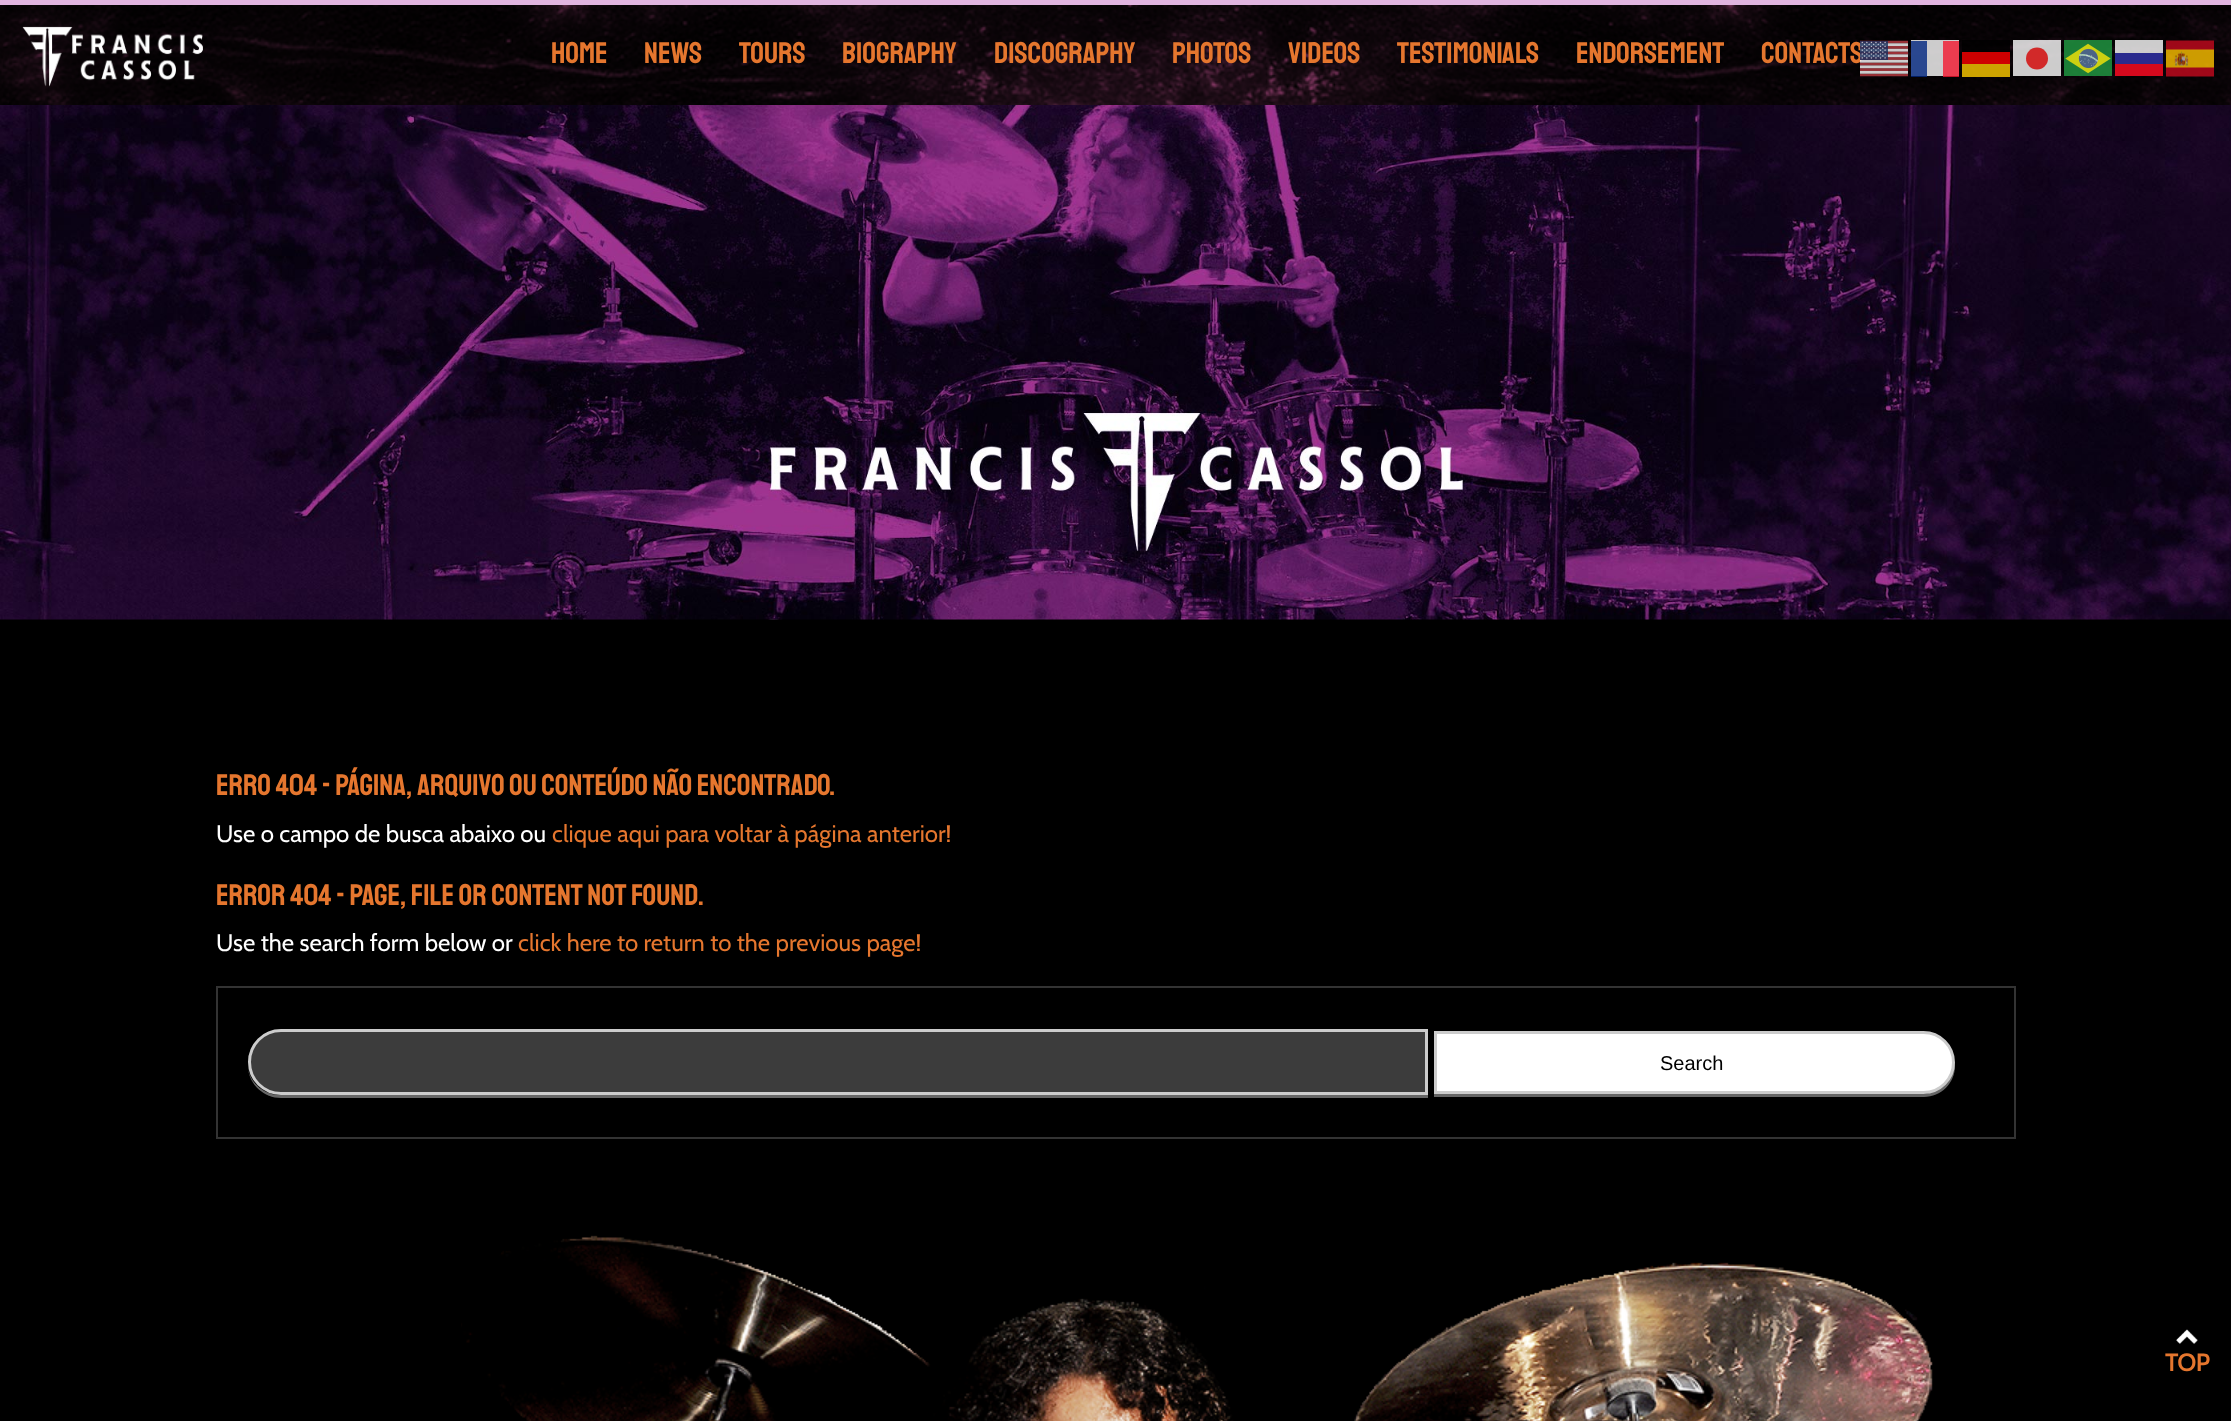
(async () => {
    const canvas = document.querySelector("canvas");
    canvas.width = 2231;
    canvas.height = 1421;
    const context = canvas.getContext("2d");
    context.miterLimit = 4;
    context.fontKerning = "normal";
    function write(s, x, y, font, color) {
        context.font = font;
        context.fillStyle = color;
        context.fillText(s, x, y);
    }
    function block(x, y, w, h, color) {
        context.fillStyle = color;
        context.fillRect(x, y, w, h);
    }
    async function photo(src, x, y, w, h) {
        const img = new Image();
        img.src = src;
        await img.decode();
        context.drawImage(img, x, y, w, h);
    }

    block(0, 0, 2231, 1421, "rgb(0, 0, 0)");
    await photo("media/1.png", 0, 5, 2231, 100);
    block(0, 0, 2231, 5, "rgb(225, 181, 224)");
    await photo("media/2.png", 22, 26, 181, 61);
    write("HOME", 551, 63, "30px Staatliches", "rgb(229, 118, 46)");
    write("NEWS", 644, 63, "30px Staatliches", "rgb(229, 118, 46)");
    write("TOURS", 739, 63, "30px Staatliches", "rgb(229, 118, 46)");
    write("BIOGRAPHY", 842, 63, "30px Staatliches", "rgb(229, 118, 46)");
    write("DISCOGRAPHY", 994, 63, "30px Staatliches", "rgb(229, 118, 46)");
    write("PHOTOS", 1172, 63, "30px Staatliches", "rgb(229, 118, 46)");
    write("VIDEOS", 1288, 63, "30px Staatliches", "rgb(229, 118, 46)");
    write("TESTIMONIALS", 1397, 63, "30px Staatliches", "rgb(229, 118, 46)");
    write("ENDORSEMENT", 1576, 63, "30px Staatliches", "rgb(229, 118, 46)");
    write("CONTACTS", 1761, 63, "30px Staatliches", "rgb(229, 118, 46)");
    await photo("media/3.png", 1860, 40, 48, 37);
    block(1911, 40, 48, 36, "rgba(255, 255, 255, 0.8)");
    block(1962, 40, 48, 12, "rgba(0, 0, 0, 0.8)");
    block(2013, 40, 48, 36, "rgba(255, 255, 255, 0.8)");
    await photo("media/4.png", 2064, 40, 48, 36);
    block(2115, 40, 48, 13, "rgba(255, 255, 255, 0.8)");
    await photo("media/5.png", 2166, 40, 48, 37);
    block(1911, 41, 16, 36, "rgba(0, 38, 127, 0.8)");
    block(1943, 41, 16, 36, "rgba(243, 24, 48, 0.8)");
    block(1962, 52, 48, 12, "rgba(255, 0, 0, 0.8)");
    context.fillStyle = "rgba(211, 0, 0, 0.8)";
    context.beginPath();
    context.arc(2037, 58.5, 11, 0, Math.PI * 2);
    context.fill();
    block(2115, 53, 48, 11, "rgb(42, 42, 142)");
    block(1962, 64, 48, 13, "rgba(255, 204, 0, 0.8)");
    block(2115, 64, 48, 12, "rgb(212, 9, 29)");
    await photo("media/6.png", 0, 105, 2231, 515);
    write("ERRO 404 - PÁGINA, ARQUIVO OU CONTEÚDO NÃO ENCONTRADO.", 216, 795, "30px Staatliches", "rgb(229, 118, 46)");
    write("Use o campo de busca abaixo ou", 216, 842, "24px Cabin", "rgb(255, 255, 255)");
    write("clique aqui para voltar à página anterior!", 552, 842, "24px Cabin", "rgb(229, 118, 46)");
    write("ERROR 404 - PAGE, FILE OR CONTENT NOT FOUND.", 216, 905, "30px Staatliches", "rgb(229, 118, 46)");
    write("Use the search form below or", 216, 951, "24px Cabin", "rgb(255, 255, 255)");
    write("click here to return to the previous page!", 518, 951, "24px Cabin", "rgb(229, 118, 46)");
    context.strokeStyle = "rgb(51, 51, 51)";
    context.lineWidth = 2;
    context.strokeRect(217, 987, 1798, 151);
    context.fillStyle = "rgb(102, 102, 102)";
    context.beginPath();
    context.moveTo(248, 1069);
    context.bezierCurveTo(250, 1085, 264, 1098, 281, 1098);
    context.lineTo(1428, 1098);
    context.lineTo(1428, 1095);
    context.lineTo(280, 1095);
    context.bezierCurveTo(265, 1095, 251, 1084, 248, 1069);
    context.closePath();
    context.fill();
    context.fillStyle = "rgb(60, 60, 60)";
    context.beginPath();
    context.roundRect(249.5, 1030.5, 1177, 63, [31.5, 0, 0, 31.5]);
    context.fill();
    context.strokeStyle = "rgb(204, 204, 204)";
    context.lineWidth = 3;
    context.stroke();
    context.fillStyle = "rgb(102, 102, 102)";
    context.beginPath();
    context.moveTo(1434, 1094);
    context.lineTo(1434, 1097);
    context.lineTo(1924, 1097);
    context.bezierCurveTo(1941, 1097, 1955, 1083, 1955, 1066);
    context.lineTo(1954, 1059);
    context.bezierCurveTo(1956, 1077, 1941, 1093, 1923, 1094);
    context.closePath();
    context.fill();
    context.fillStyle = "rgb(255, 255, 255)";
    context.beginPath();
    context.roundRect(1435.5, 1032.5, 518, 60, [0, 30, 30, 0]);
    context.fill();
    context.stroke();
    write("Search", 1660, 1070, "20px Liberation Sans", "rgb(0, 0, 0)");
    await photo("media/7.png", 461, 1235, 1472, 186);
    await photo("media/8.png", 2176, 1329, 22, 15);
    write("TOP", 2165, 1371, "bold 24px Cabin", "rgb(229, 118, 46)");
})();
